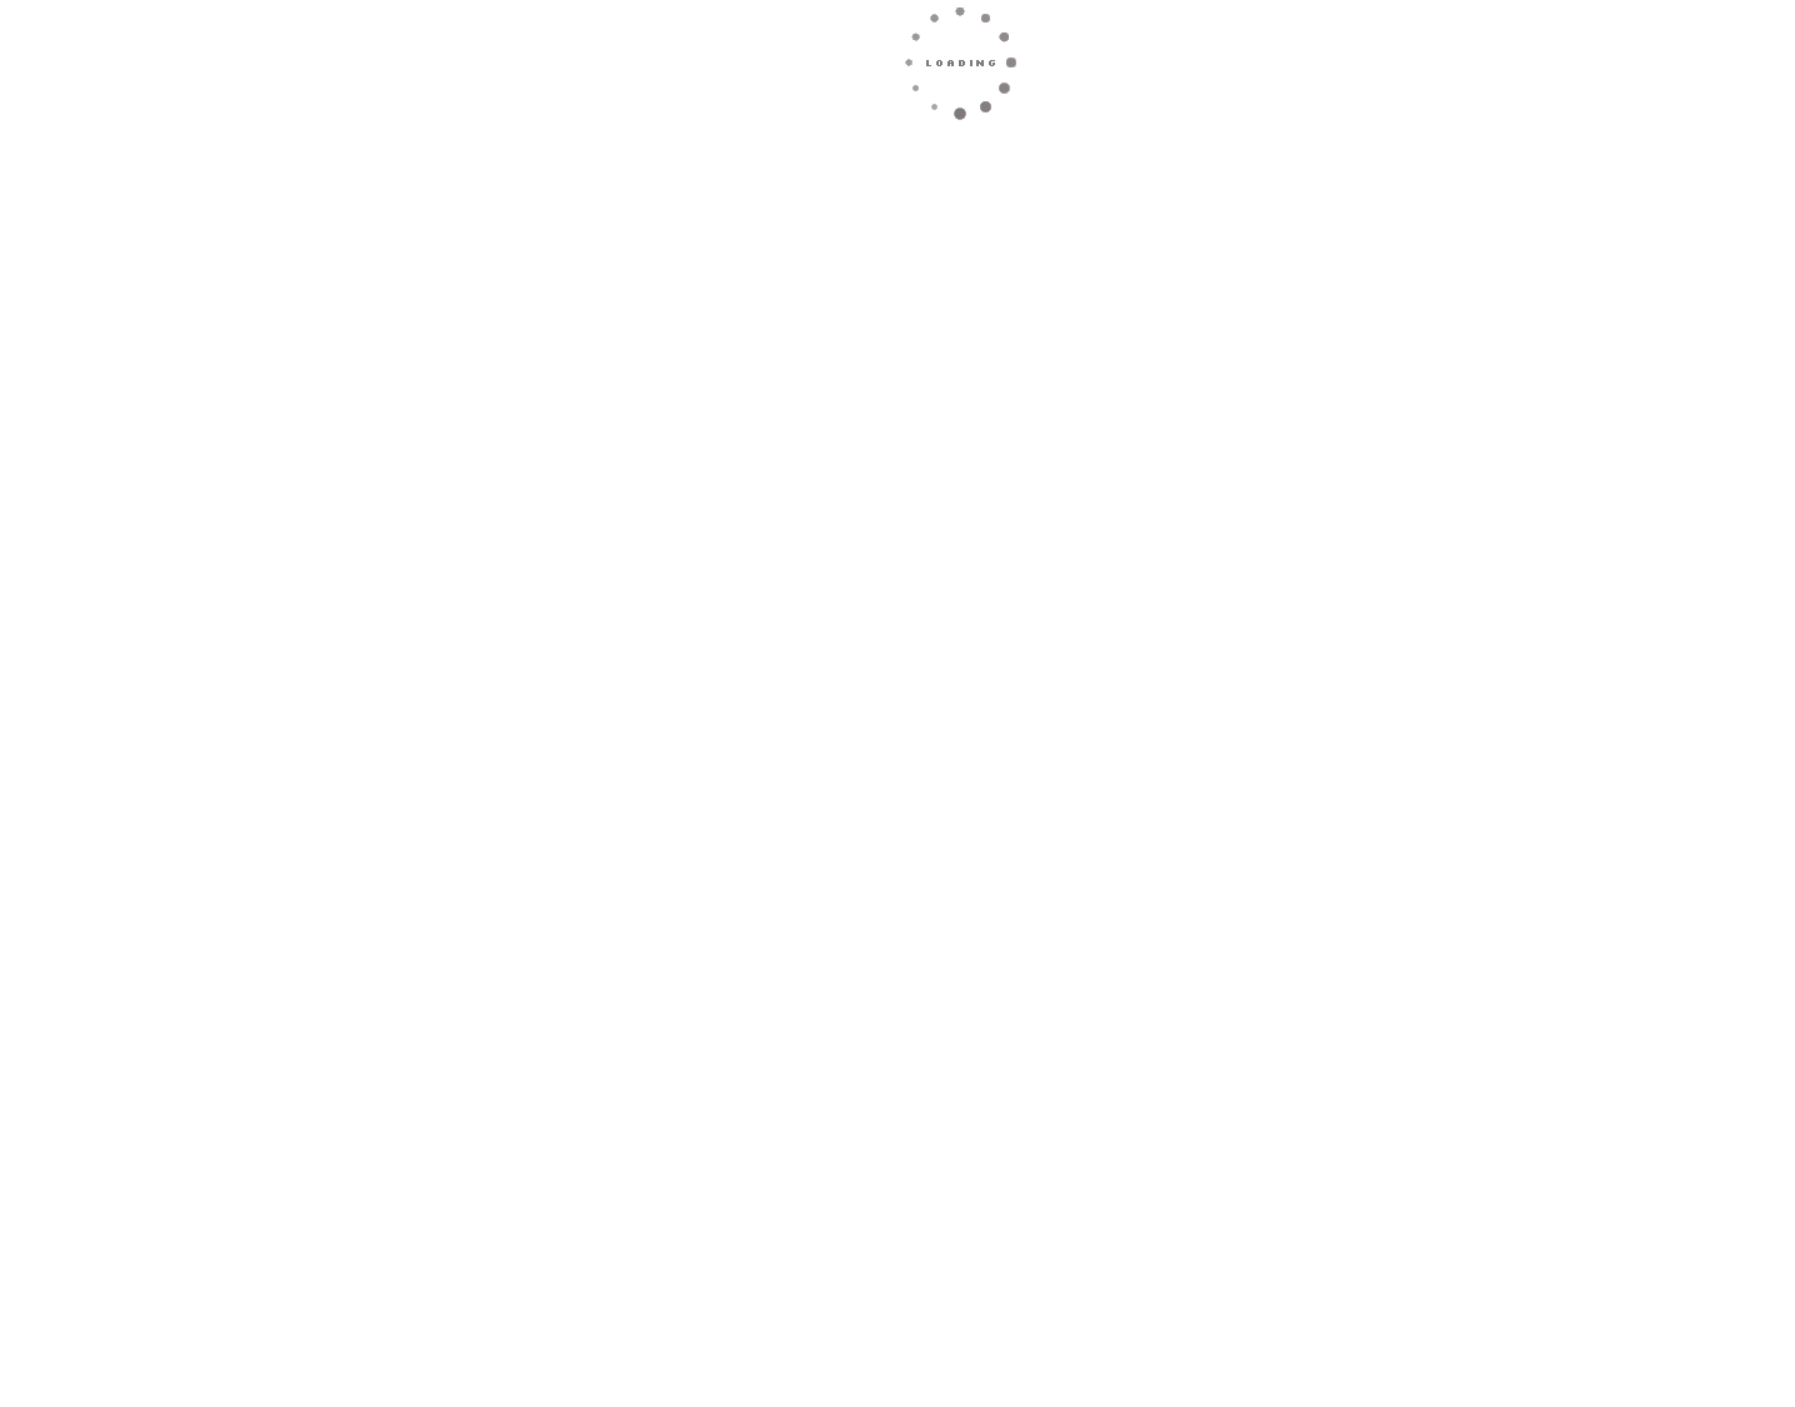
(async () => {
    const canvas = document.querySelector("canvas");
    canvas.width = 1795;
    canvas.height = 1407;
    const context = canvas.getContext("2d");
    context.miterLimit = 4;
    context.fontKerning = "normal";
    function block(x, y, w, h, color) {
        context.fillStyle = color;
        context.fillRect(x, y, w, h);
    }
    async function photo(src, x, y, w, h) {
        const img = new Image();
        img.src = src;
        await img.decode();
        context.drawImage(img, x, y, w, h);
    }

    block(0, 0, 1795, 1407, "rgb(255, 255, 255)");
    await photo("media/1.png", 904, 7, 113, 114);
})();
